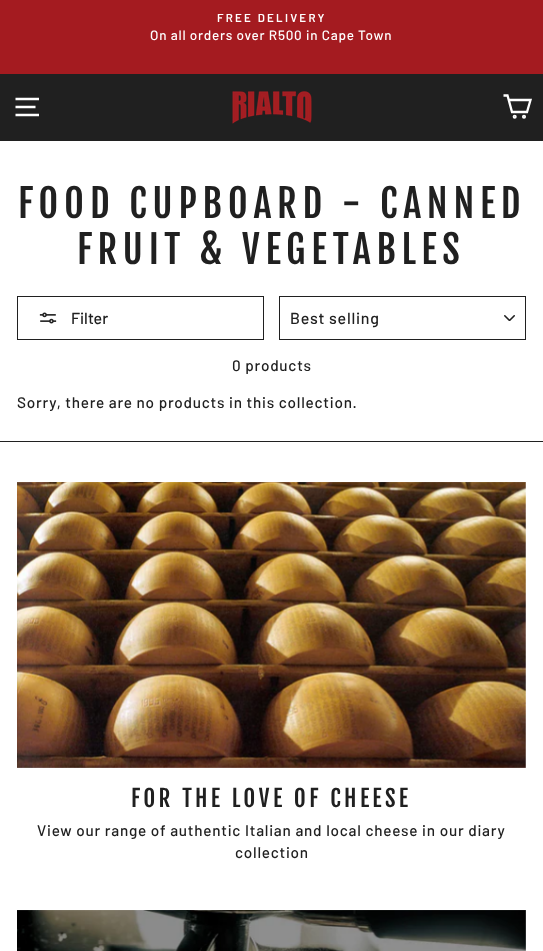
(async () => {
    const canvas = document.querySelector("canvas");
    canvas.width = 543;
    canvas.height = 951;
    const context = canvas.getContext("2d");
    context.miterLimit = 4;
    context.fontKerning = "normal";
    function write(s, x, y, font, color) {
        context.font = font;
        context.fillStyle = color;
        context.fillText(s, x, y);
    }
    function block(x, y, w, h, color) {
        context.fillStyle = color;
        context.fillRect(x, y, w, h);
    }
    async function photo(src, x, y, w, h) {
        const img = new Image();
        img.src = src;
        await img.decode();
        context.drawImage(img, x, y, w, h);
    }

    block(0, 0, 543, 951, "rgb(255, 255, 255)");
    block(0, 0, 543, 74, "rgb(164, 27, 32)");
    context.letterSpacing = "2.25px";
    write("FREE DELIVERY", 217, 22, "600 11.5px Barlow", "rgb(255, 255, 255)");
    context.letterSpacing = "0.77px";
    write("On all orders over R500 in Cape Town", 150, 40, "500 13.5px Barlow", "rgb(255, 255, 255)");
    block(0, 74, 543, 67, "rgb(32, 32, 32)");
    context.beginPath();
    context.moveTo(15.5, 99);
    context.lineTo(39, 99);
    context.moveTo(15.5, 107);
    context.lineTo(35.5, 107);
    context.moveTo(15.5, 115);
    context.lineTo(39, 115);
    context.strokeStyle = "rgb(255, 255, 255)";
    context.lineWidth = 2.3;
    context.stroke();
    await photo("media/1.png", 232, 91, 80, 33);
    context.beginPath();
    context.moveTo(508.5, 100);
    context.lineTo(530.5, 100);
    context.lineTo(527, 112);
    context.lineTo(512, 112);
    context.lineTo(507.5, 95.5);
    context.lineTo(503.5, 95.5);
    context.stroke();
    context.beginPath();
    context.arc(514.7, 116.8, 0.9, 0, Math.PI * 2);
    context.stroke();
    context.beginPath();
    context.arc(524, 116.8, 0.9, 0, Math.PI * 2);
    context.stroke();
    context.letterSpacing = "5.75px";
    write("FOOD CUPBOARD - CANNED", 18, 218, "38.25px Fjalla One", "rgb(32, 32, 32)");
    write("FRUIT & VEGETABLES", 77, 264, "38.25px Fjalla One", "rgb(32, 32, 32)");
    context.strokeStyle = "rgb(32, 32, 32)";
    context.lineWidth = 1;
    context.strokeRect(17.5, 296.5, 246, 43);
    await photo("media/2.png", 39, 312, 18, 12);
    context.letterSpacing = "0px";
    write("Filter", 71, 324, "500 16px Barlow", "rgb(32, 32, 32)");
    await photo("media/3.png", 504, 315, 11, 6);
    context.strokeRect(279.5, 296.5, 246, 43);
    context.letterSpacing = "0.75px";
    write("Best selling", 290, 324, "500 16px Barlow", "rgb(32, 32, 32)");
    context.letterSpacing = "0.77px";
    write("0 products", 232, 371, "500 15.3px Barlow", "rgb(32, 32, 32)");
    write("Sorry, there are no products in this collection.", 17, 408, "500 15.3px Barlow", "rgb(32, 32, 32)");
    block(0, 441, 543, 1, "rgb(32, 32, 32)");
    await photo("media/4.png", 17, 482, 509, 286);
    context.letterSpacing = "3.4px";
    write("FOR THE LOVE OF CHEESE", 131, 807, "23px Fjalla One", "rgb(32, 32, 32)");
    context.letterSpacing = "0.77px";
    write("View our range of authentic Italian and local cheese in our diary", 37, 836, "500 15.3px Barlow", "rgb(32, 32, 32)");
    write("collection", 235, 858, "500 15.3px Barlow", "rgb(32, 32, 32)");
    await photo("media/5.png", 17, 910, 509, 41);
})();
